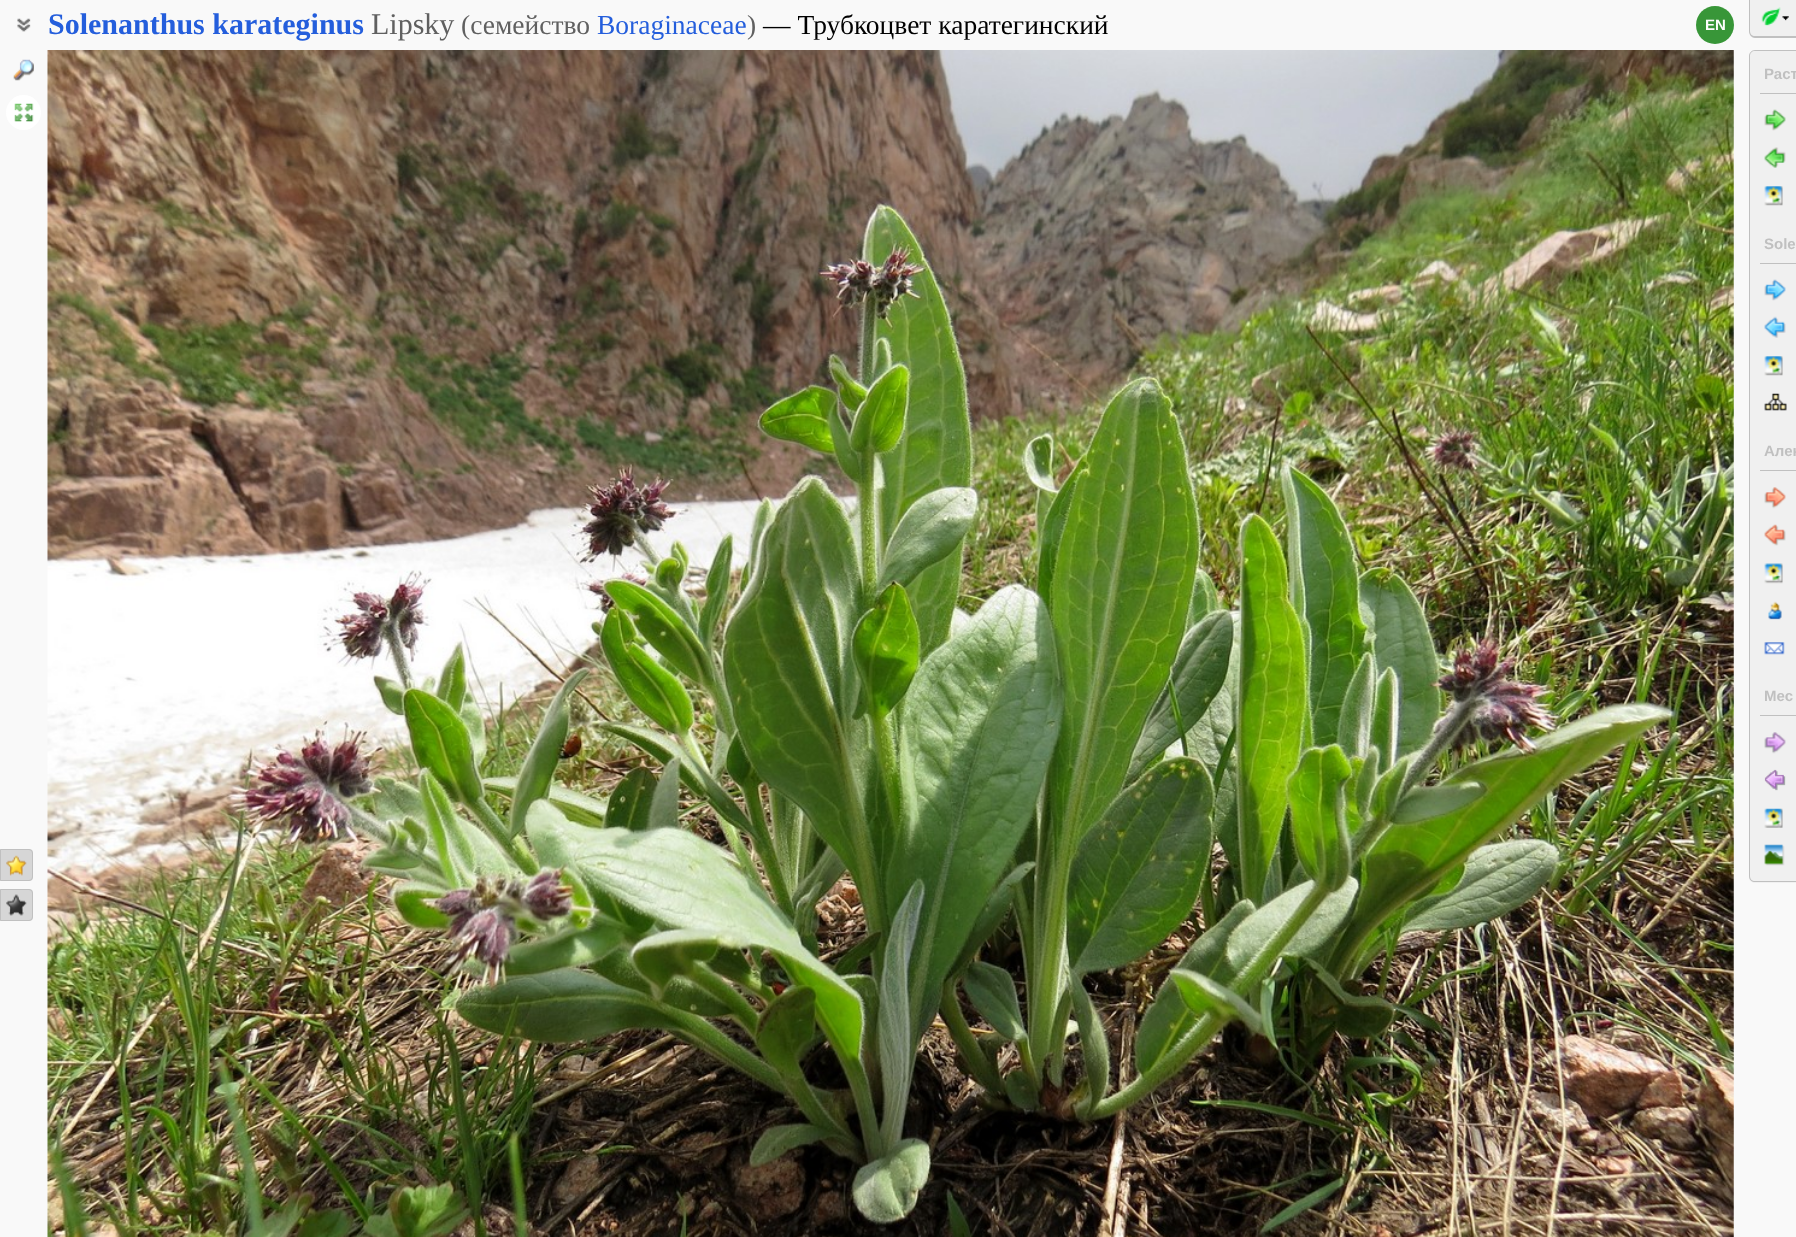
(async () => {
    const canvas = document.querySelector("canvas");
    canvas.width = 1796;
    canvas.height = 1237;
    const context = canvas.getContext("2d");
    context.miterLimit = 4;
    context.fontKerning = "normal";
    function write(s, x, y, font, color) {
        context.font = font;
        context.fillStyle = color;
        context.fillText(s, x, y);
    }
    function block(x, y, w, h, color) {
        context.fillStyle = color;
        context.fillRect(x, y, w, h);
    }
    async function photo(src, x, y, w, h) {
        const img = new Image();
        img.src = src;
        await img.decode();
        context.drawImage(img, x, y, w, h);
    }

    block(0, 0, 1796, 1237, "rgb(249, 249, 249)");
    await photo("media/1.png", 17, 18, 14, 14);
    write("Solenanthus karateginus", 48, 34, "bold 30px Liberation Serif", "rgb(36, 94, 220)");
    write("Lipsky", 371, 34, "30px Liberation Serif", "rgb(96, 96, 96)");
    write("(семейство", 461, 34, "27.5px Liberation Serif", "rgb(96, 96, 96)");
    write("Boraginaceae", 597, 34, "27.5px Liberation Serif", "rgb(36, 94, 220)");
    write(")", 747, 34, "27.5px Liberation Serif", "rgb(96, 96, 96)");
    write("— Трубкоцвет каратегинский", 763, 34, "27.5px Liberation Serif", "rgb(0, 0, 0)");
    context.fillStyle = "rgb(56, 150, 56)";
    context.beginPath();
    context.arc(1715, 25, 19, 0, Math.PI * 2);
    context.fill();
    write("EN", 1705, 30, "bold 15px Liberation Sans", "rgb(254, 254, 254)");
    await photo("media/2.png", 13, 59, 21, 22);
    context.fillStyle = "rgb(255, 255, 255)";
    context.beginPath();
    context.arc(23.5, 112.5, 17.5, 0, Math.PI * 2);
    context.fill();
    await photo("media/3.png", 14, 103, 20, 19);
    context.fillStyle = "rgb(214, 214, 214)";
    context.beginPath();
    context.roundRect(0, 849, 33, 32, [0, 4, 4, 0]);
    context.fill();
    await photo("media/4.png", 6, 855, 21, 21);
    context.beginPath();
    context.roundRect(0.5, 849.5, 32, 31, [0, 3.5, 3.5, 0]);
    context.strokeStyle = "rgb(192, 192, 192)";
    context.stroke();
    context.beginPath();
    context.roundRect(0, 889, 33, 32, [0, 4, 4, 0]);
    context.fill();
    await photo("media/5.png", 6, 894, 21, 22);
    context.beginPath();
    context.roundRect(0.5, 889.5, 32, 31, [0, 3.5, 3.5, 0]);
    context.stroke();
    await photo("media/6.png", 47, 50, 1687, 1187);
    context.fillStyle = "rgb(240, 240, 240)";
    context.beginPath();
    context.roundRect(1749, 0, 47, 38, [0, 0, 0, 6]);
    context.fill();
    await photo("media/7.png", 1761, 7, 20, 19);
    context.fillStyle = "rgb(192, 192, 192)";
    context.beginPath();
    context.moveTo(1749, 0);
    context.lineTo(1796, 0);
    context.lineTo(1796, 38);
    context.lineTo(1755, 38);
    context.bezierCurveTo(1752, 38, 1749, 35, 1749, 31);
    context.closePath();
    context.moveTo(1750, 0);
    context.lineTo(1796, 0);
    context.lineTo(1796, 36);
    context.lineTo(1755, 36);
    context.bezierCurveTo(1752, 36, 1750, 34, 1750, 31);
    context.closePath();
    context.fill("evenodd");
    await photo("media/8.png", 1782, 16, 7, 5);
    context.fillStyle = "rgb(240, 240, 240)";
    context.beginPath();
    context.moveTo(1755, 50);
    context.lineTo(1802, 50);
    context.lineTo(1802, 883);
    context.lineTo(1755, 883);
    context.bezierCurveTo(1751.5, 883, 1749, 880.5, 1749, 877);
    context.lineTo(1749, 56);
    context.bezierCurveTo(1749, 52.5, 1751.5, 50, 1755, 50);
    context.closePath();
    context.fill();
    context.fillStyle = "rgb(192, 192, 192)";
    context.beginPath();
    context.moveTo(1755, 50);
    context.lineTo(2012, 50);
    context.lineTo(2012, 882);
    context.lineTo(1755, 882);
    context.bezierCurveTo(1752, 882, 1749, 880, 1749, 876);
    context.lineTo(1749, 56);
    context.bezierCurveTo(1749, 53, 1752, 50, 1755, 50);
    context.closePath();
    context.moveTo(1755, 51);
    context.lineTo(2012, 51);
    context.lineTo(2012, 881);
    context.lineTo(1755, 881);
    context.bezierCurveTo(1752, 881, 1750, 879, 1750, 876);
    context.lineTo(1750, 56);
    context.bezierCurveTo(1750, 53, 1752, 51, 1755, 51);
    context.closePath();
    context.fill("evenodd");
    block(1760, 93, 36, 1, "rgb(192, 192, 192)");
    write("Раст", 1764, 79, "bold 15px Liberation Sans", "rgb(192, 192, 192)");
    await photo("media/9.png", 1764, 109, 22, 22);
    await photo("media/10.png", 1764, 147, 22, 21);
    await photo("media/11.png", 1764, 186, 19, 20);
    block(1760, 263, 36, 1, "rgb(192, 192, 192)");
    write("Sole", 1764, 249, "bold 15px Liberation Sans", "rgb(192, 192, 192)");
    await photo("media/12.png", 1764, 279, 22, 22);
    await photo("media/13.png", 1764, 316, 22, 22);
    await photo("media/11.png", 1764, 356, 19, 20);
    await photo("media/14.png", 1764, 393, 23, 18);
    block(1760, 470, 36, 1, "rgb(192, 192, 192)");
    write("Алек", 1764, 456, "bold 15px Liberation Sans", "rgb(192, 192, 192)");
    await photo("media/15.png", 1764, 487, 22, 22);
    await photo("media/16.png", 1764, 524, 22, 22);
    await photo("media/17.png", 1764, 563, 19, 21);
    await photo("media/18.png", 1768, 601, 14, 19);
    await photo("media/19.png", 1764, 642, 21, 13);
    block(1760, 715, 36, 1, "rgb(192, 192, 192)");
    write("Мес", 1764, 701, "bold 15px Liberation Sans", "rgb(192, 192, 192)");
    await photo("media/20.png", 1764, 732, 22, 22);
    await photo("media/21.png", 1764, 769, 22, 22);
    await photo("media/22.png", 1764, 808, 19, 20);
    await photo("media/23.png", 1764, 844, 21, 22);
})();
